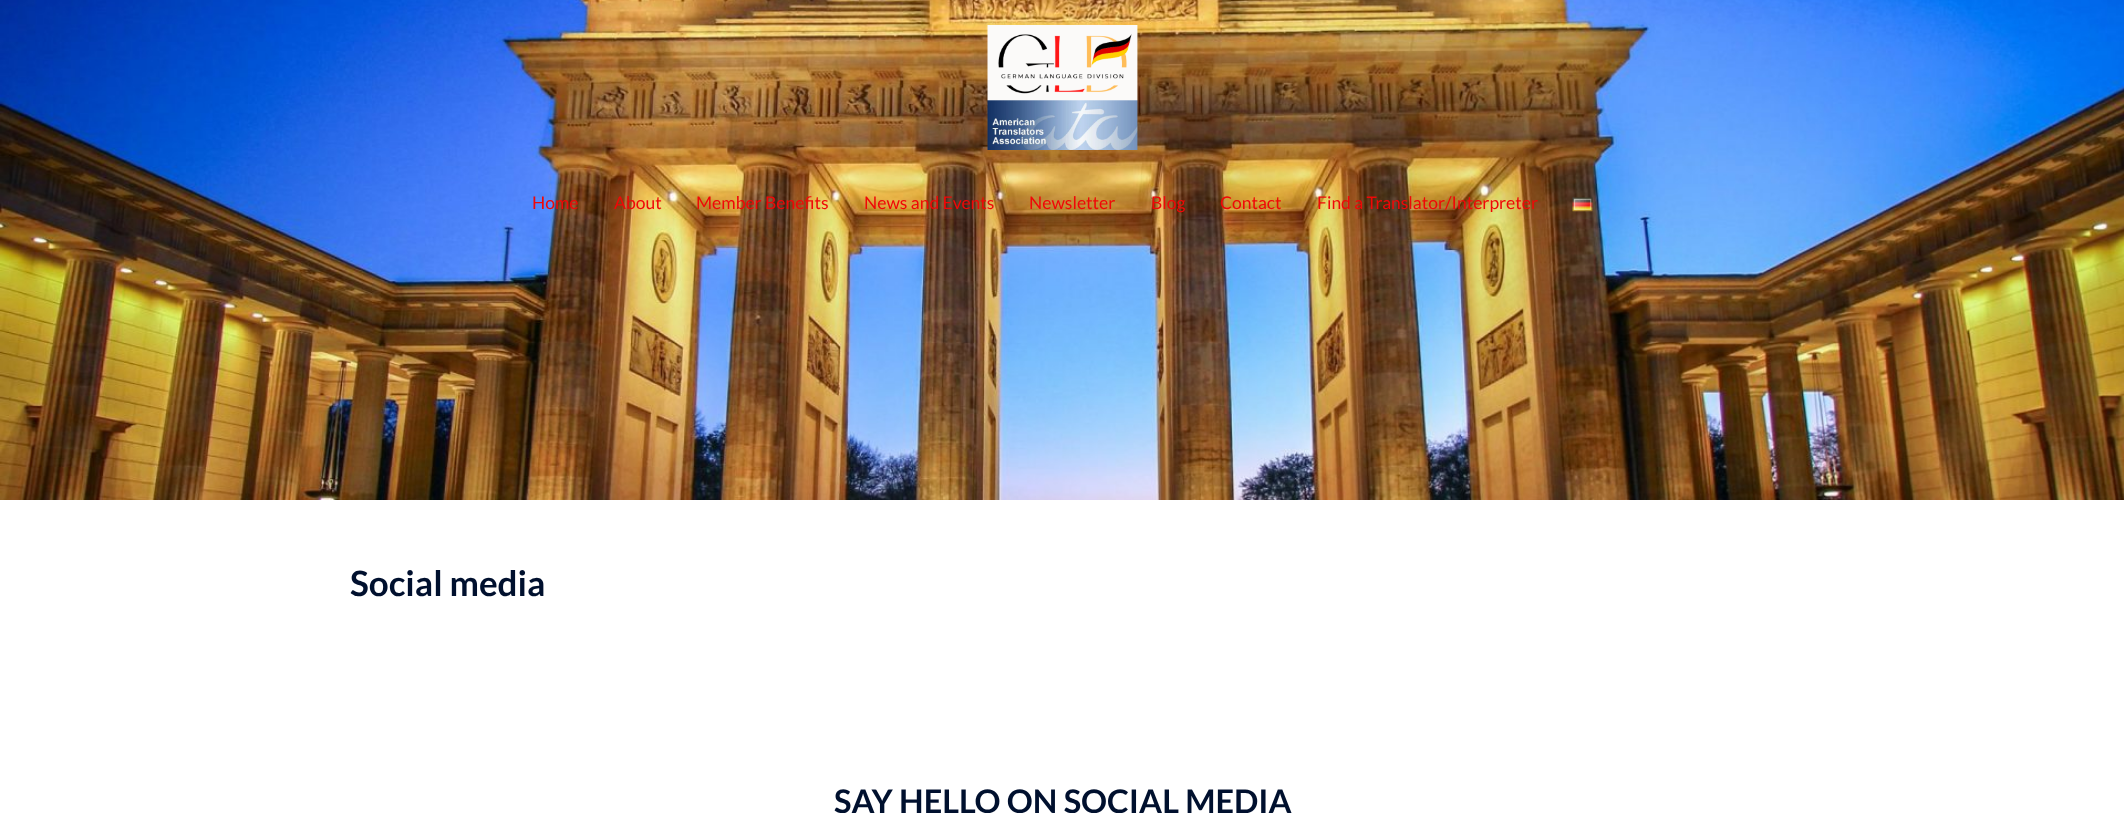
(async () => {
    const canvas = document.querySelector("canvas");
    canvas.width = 2124;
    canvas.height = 813;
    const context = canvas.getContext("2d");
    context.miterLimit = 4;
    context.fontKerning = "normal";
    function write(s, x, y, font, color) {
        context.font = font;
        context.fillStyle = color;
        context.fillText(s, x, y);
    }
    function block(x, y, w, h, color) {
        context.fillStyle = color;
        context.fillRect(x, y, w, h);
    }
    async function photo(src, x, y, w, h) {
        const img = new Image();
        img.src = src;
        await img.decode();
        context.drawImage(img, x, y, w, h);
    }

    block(0, 0, 2124, 813, "rgb(255, 255, 255)");
    await photo("media/1.png", 0, 0, 2124, 500);
    await photo("media/2.png", 987, 25, 151, 125);
    write("Home", 532, 209, "17.5px Lato", "rgb(240, 7, 7)");
    write("About", 614, 209, "17.5px Lato", "rgb(240, 7, 7)");
    write("Member Benefits", 696, 209, "17.5px Lato", "rgb(240, 7, 7)");
    write("News and Events", 864, 209, "17.5px Lato", "rgb(240, 7, 7)");
    write("Newsletter", 1029, 209, "17.5px Lato", "rgb(240, 7, 7)");
    write("Blog", 1151, 209, "17.5px Lato", "rgb(240, 7, 7)");
    write("Contact", 1220, 209, "17.5px Lato", "rgb(240, 7, 7)");
    write("Find a Translator/Interpreter", 1317, 209, "17.5px Lato", "rgb(240, 7, 7)");
    await photo("media/3.png", 1572, 197, 21, 15);
    write("Social media", 350, 596, "bold 35px Lato", "rgb(0, 16, 46)");
    write("SAY HELLO ON SOCIAL MEDIA", 834, 813, "bold 32.5px Lato", "rgb(0, 16, 46)");
})();
